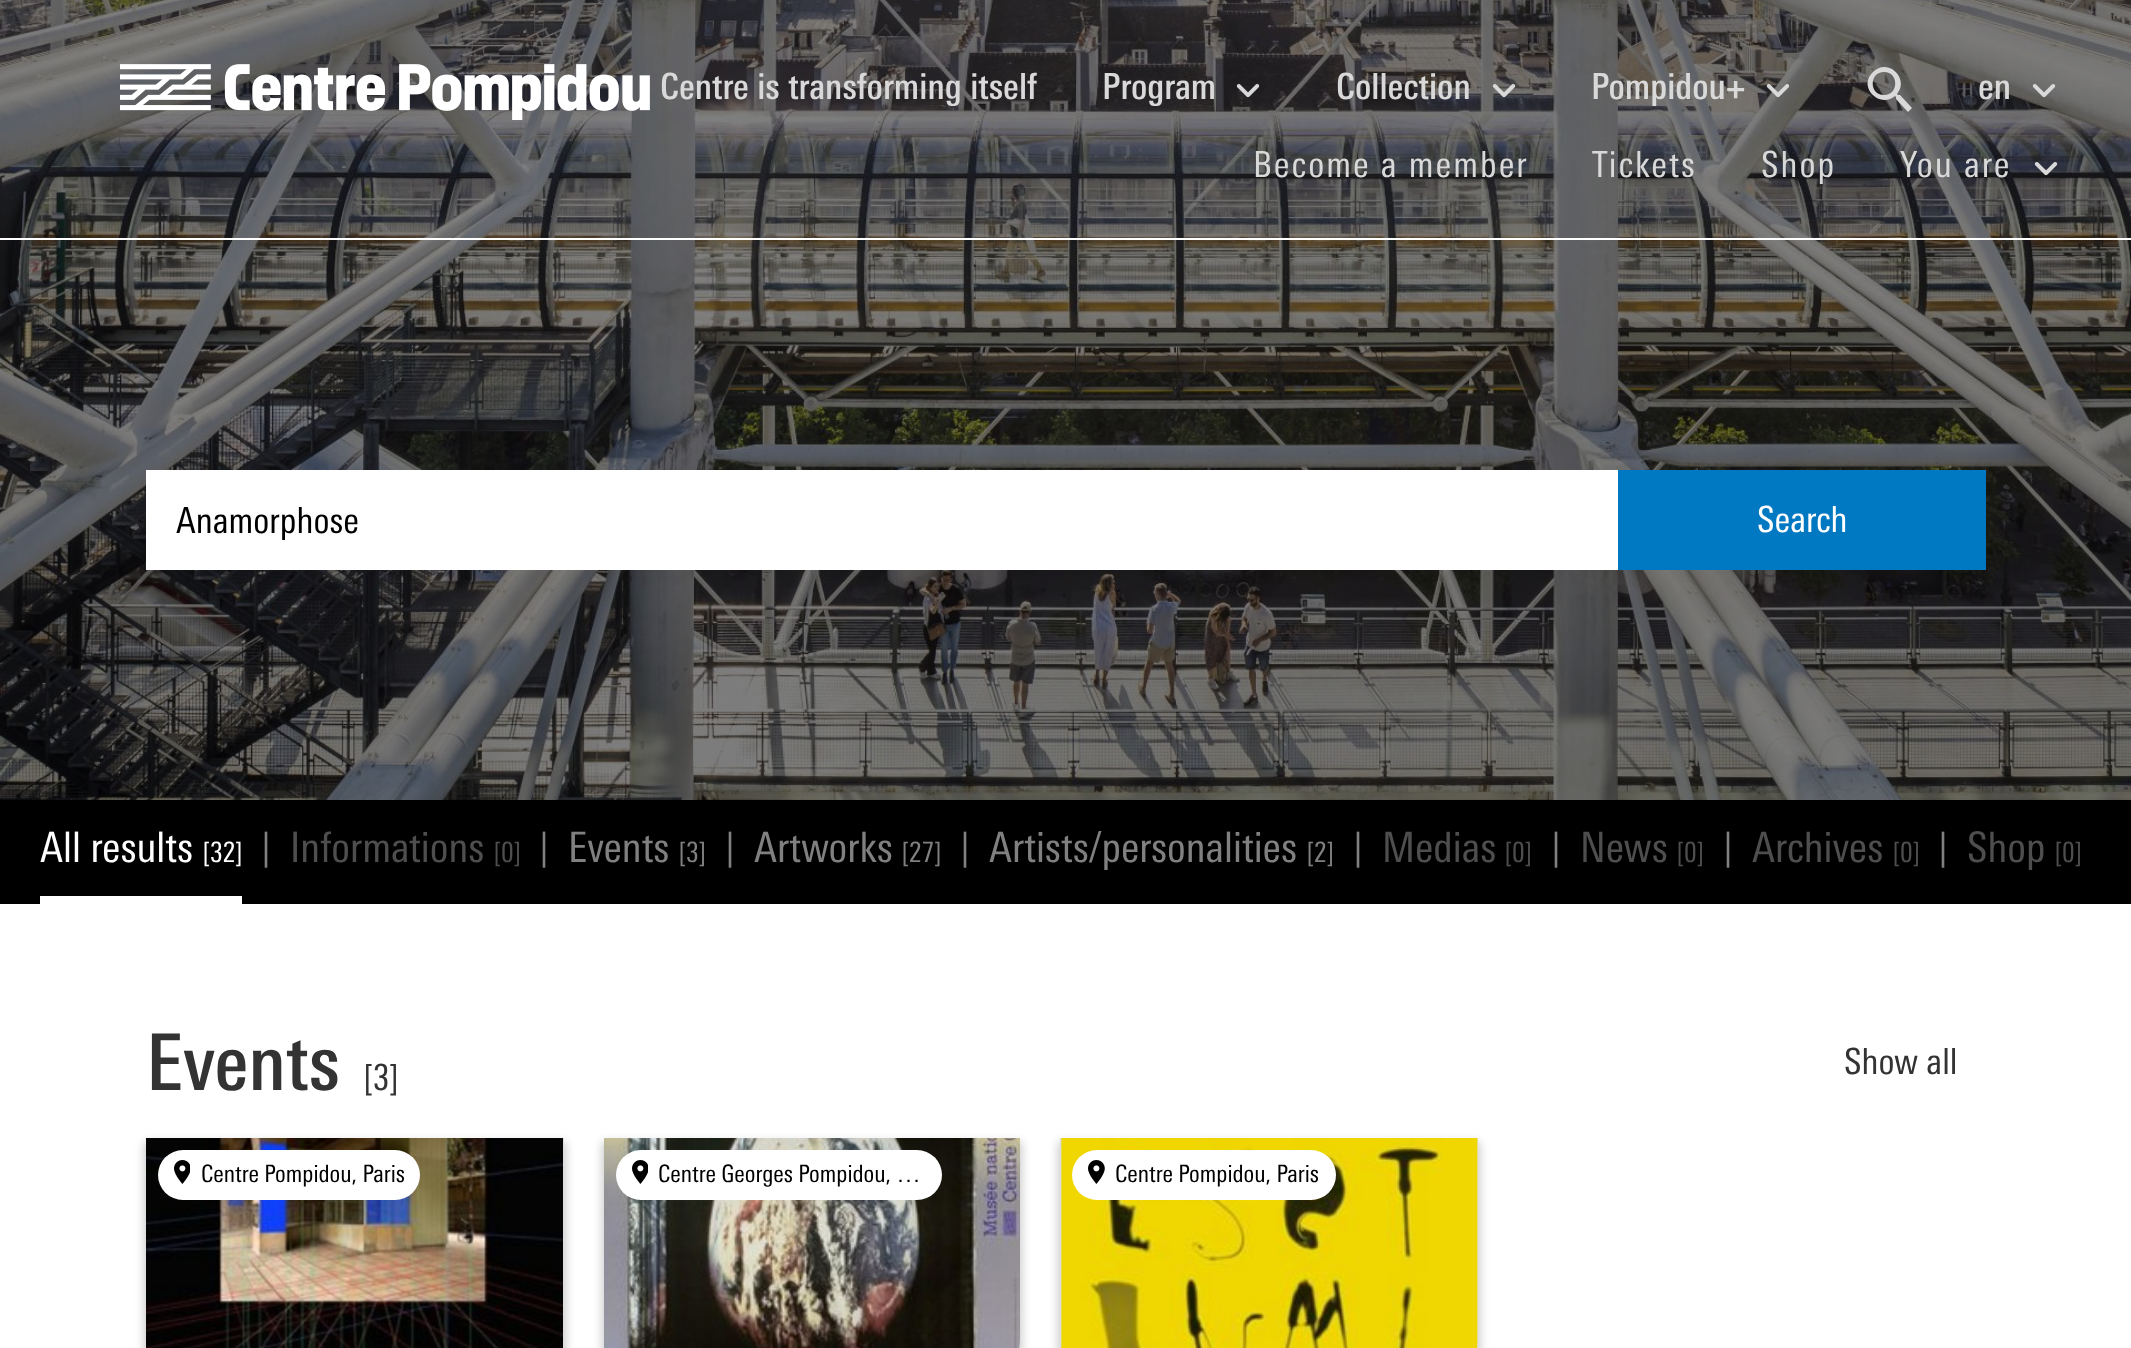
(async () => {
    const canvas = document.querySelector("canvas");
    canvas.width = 2131;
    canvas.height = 1348;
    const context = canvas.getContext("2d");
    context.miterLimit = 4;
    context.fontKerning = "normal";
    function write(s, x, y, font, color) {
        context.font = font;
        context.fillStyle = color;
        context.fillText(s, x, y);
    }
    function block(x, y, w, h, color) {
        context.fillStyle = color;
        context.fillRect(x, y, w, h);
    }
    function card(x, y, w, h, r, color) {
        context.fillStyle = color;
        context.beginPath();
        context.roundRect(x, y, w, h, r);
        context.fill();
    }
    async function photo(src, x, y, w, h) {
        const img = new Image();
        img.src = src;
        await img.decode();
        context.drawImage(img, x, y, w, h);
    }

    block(0, 0, 2131, 1348, "rgb(255, 255, 255)");
    await photo("media/7.png", 0, 0, 2131, 800);
    block(0, 238, 2131, 2, "rgb(255, 255, 255)");
    await photo("media/1.png", 120, 64, 530, 56);
    write("Centre is transforming itself", 660, 99, "500 36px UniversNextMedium", "rgb(217, 217, 217)");
    write("Program", 1102, 99, "500 36px UniversNextMedium", "rgb(217, 217, 217)");
    await photo("media/2.png", 1236, 84, 24, 14);
    write("Collection", 1336, 99, "500 36px UniversNextMedium", "rgb(217, 217, 217)");
    await photo("media/3.png", 1492, 84, 24, 14);
    write("Pompidou+", 1591, 99, "500 36px UniversNextMedium", "rgb(217, 217, 217)");
    await photo("media/4.png", 1766, 84, 24, 14);
    context.beginPath();
    context.moveTo(1884, 95);
    context.bezierCurveTo(1869, 95, 1869, 72, 1884, 72);
    context.bezierCurveTo(1899, 72, 1899, 95, 1884, 95);
    context.closePath();
    context.moveTo(1900, 95);
    context.lineTo(1898, 95);
    context.lineTo(1897, 94);
    context.bezierCurveTo(1910, 79, 1888, 57, 1873, 72);
    context.bezierCurveTo(1857, 87, 1880, 109, 1895, 96);
    context.lineTo(1896, 97);
    context.lineTo(1896, 99);
    context.lineTo(1908, 112);
    context.lineTo(1912, 108);
    context.closePath();
    context.fill("evenodd");
    write("en", 1978, 99, "500 36px UniversNextMedium", "rgb(217, 217, 217)");
    await photo("media/5.png", 2032, 84, 24, 14);
    context.letterSpacing = "2px";
    write("Become a member", 1253, 177, "36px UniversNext", "rgb(217, 217, 217)");
    write("Tickets", 1592, 177, "36px UniversNext", "rgb(217, 217, 217)");
    write("Shop", 1761, 177, "36px UniversNext", "rgb(217, 217, 217)");
    write("You are", 1900, 177, "36px UniversNext", "rgb(217, 217, 217)");
    await photo("media/6.png", 2034, 162, 24, 14);
    block(146, 470, 1472, 100, "rgb(255, 255, 255)");
    context.letterSpacing = "0px";
    write("Anamorphose", 176, 533, "36px UniversNext", "rgb(0, 0, 0)");
    block(1618, 470, 368, 100, "rgb(0, 120, 194)");
    write("Search", 1757, 532, "36px UniversNext", "rgb(255, 255, 255)");
    block(0, 800, 2131, 104, "rgb(0, 0, 0)");
    block(40, 896, 202, 8, "rgb(255, 255, 255)");
    write("All results", 40, 862, "42px UniversNext", "rgb(255, 255, 255)");
    write("[32]", 203, 862, "28px UniversNext", "rgb(255, 255, 255)");
    write("|", 262, 860, "36px UniversNext", "rgb(128, 128, 128)");
    write("Informations", 290, 862, "42px UniversNext", "rgb(78, 78, 78)");
    write("[0]", 494, 862, "28px UniversNext", "rgb(78, 78, 78)");
    write("|", 540, 860, "36px UniversNext", "rgb(128, 128, 128)");
    write("Events", 568, 862, "42px UniversNext", "rgb(128, 128, 128)");
    write("[3]", 679, 862, "28px UniversNext", "rgb(128, 128, 128)");
    write("|", 726, 860, "36px UniversNext", "rgb(128, 128, 128)");
    write("Artworks", 754, 862, "42px UniversNext", "rgb(128, 128, 128)");
    write("[27]", 902, 862, "28px UniversNext", "rgb(128, 128, 128)");
    write("|", 961, 860, "36px UniversNext", "rgb(128, 128, 128)");
    write("Artists/personalities", 989, 862, "42px UniversNext", "rgb(128, 128, 128)");
    write("[2]", 1307, 862, "28px UniversNext", "rgb(128, 128, 128)");
    write("|", 1354, 860, "36px UniversNext", "rgb(128, 128, 128)");
    write("Medias", 1382, 862, "42px UniversNext", "rgb(78, 78, 78)");
    write("[0]", 1505, 862, "28px UniversNext", "rgb(78, 78, 78)");
    write("|", 1552, 860, "36px UniversNext", "rgb(128, 128, 128)");
    write("News", 1580, 862, "42px UniversNext", "rgb(78, 78, 78)");
    write("[0]", 1677, 862, "28px UniversNext", "rgb(78, 78, 78)");
    write("|", 1724, 860, "36px UniversNext", "rgb(128, 128, 128)");
    write("Archives", 1752, 862, "42px UniversNext", "rgb(78, 78, 78)");
    write("[0]", 1893, 862, "28px UniversNext", "rgb(78, 78, 78)");
    write("|", 1939, 860, "36px UniversNext", "rgb(128, 128, 128)");
    write("Shop", 1967, 862, "42px UniversNext", "rgb(78, 78, 78)");
    write("[0]", 2055, 862, "28px UniversNext", "rgb(78, 78, 78)");
    write("Events", 146, 1090, "500 78px UniversNextMedium", "rgb(51, 51, 51)");
    write("[3]", 364, 1090, "36px UniversNext", "rgb(51, 51, 51)");
    write("Show all", 1844, 1074, "36px UniversNext", "rgb(51, 51, 51)");
    context.fillStyle = "rgba(0, 0, 0, 0.2)";
    context.filter = "blur(5px)";
    context.beginPath();
    context.rect(144, 1142, 422, 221);
    context.fill();
    context.filter = "none";
    context.fillStyle = "rgb(221, 221, 221)";
    context.beginPath();
    context.moveTo(146, 1138);
    context.lineTo(564, 1138);
    context.lineTo(564, 1338);
    context.bezierCurveTo(564, 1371, 537, 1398, 504, 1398);
    context.lineTo(146, 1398);
    context.closePath();
    context.fill();
    await photo("media/8.png", 146, 1138, 417, 210);
    card(158, 1150, 262, 50, 25, "rgb(255, 255, 255)");
    await photo("media/9.png", 174, 1160, 16, 24);
    write("Centre Pompidou, Paris", 201, 1182, "24px UniversNext", "rgb(0, 0, 0)");
    context.fillStyle = "rgba(0, 0, 0, 0.2)";
    context.filter = "blur(5px)";
    context.beginPath();
    context.rect(602, 1142, 420, 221);
    context.fill();
    context.filter = "none";
    await photo("media/10.png", 604, 1138, 416, 210);
    card(616, 1150, 326, 50, 25, "rgb(255, 255, 255)");
    await photo("media/9.png", 632, 1160, 16, 24);
    write("Centre Georges Pompidou, …", 658, 1182, "24px UniversNext", "rgb(0, 0, 0)");
    context.fillStyle = "rgba(0, 0, 0, 0.2)";
    context.filter = "blur(5px)";
    context.beginPath();
    context.rect(1058, 1142, 422, 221);
    context.fill();
    context.filter = "none";
    context.fillStyle = "rgb(221, 221, 221)";
    context.beginPath();
    context.moveTo(1060, 1138);
    context.lineTo(1478, 1138);
    context.lineTo(1478, 1338);
    context.bezierCurveTo(1478, 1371, 1451, 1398, 1418, 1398);
    context.lineTo(1060, 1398);
    context.closePath();
    context.fill();
    await photo("media/11.png", 1061, 1138, 417, 210);
    card(1072, 1150, 264, 50, 25, "rgb(255, 255, 255)");
    await photo("media/12.png", 1088, 1160, 17, 24);
    write("Centre Pompidou, Paris", 1115, 1182, "24px UniversNext", "rgb(0, 0, 0)");
})();
